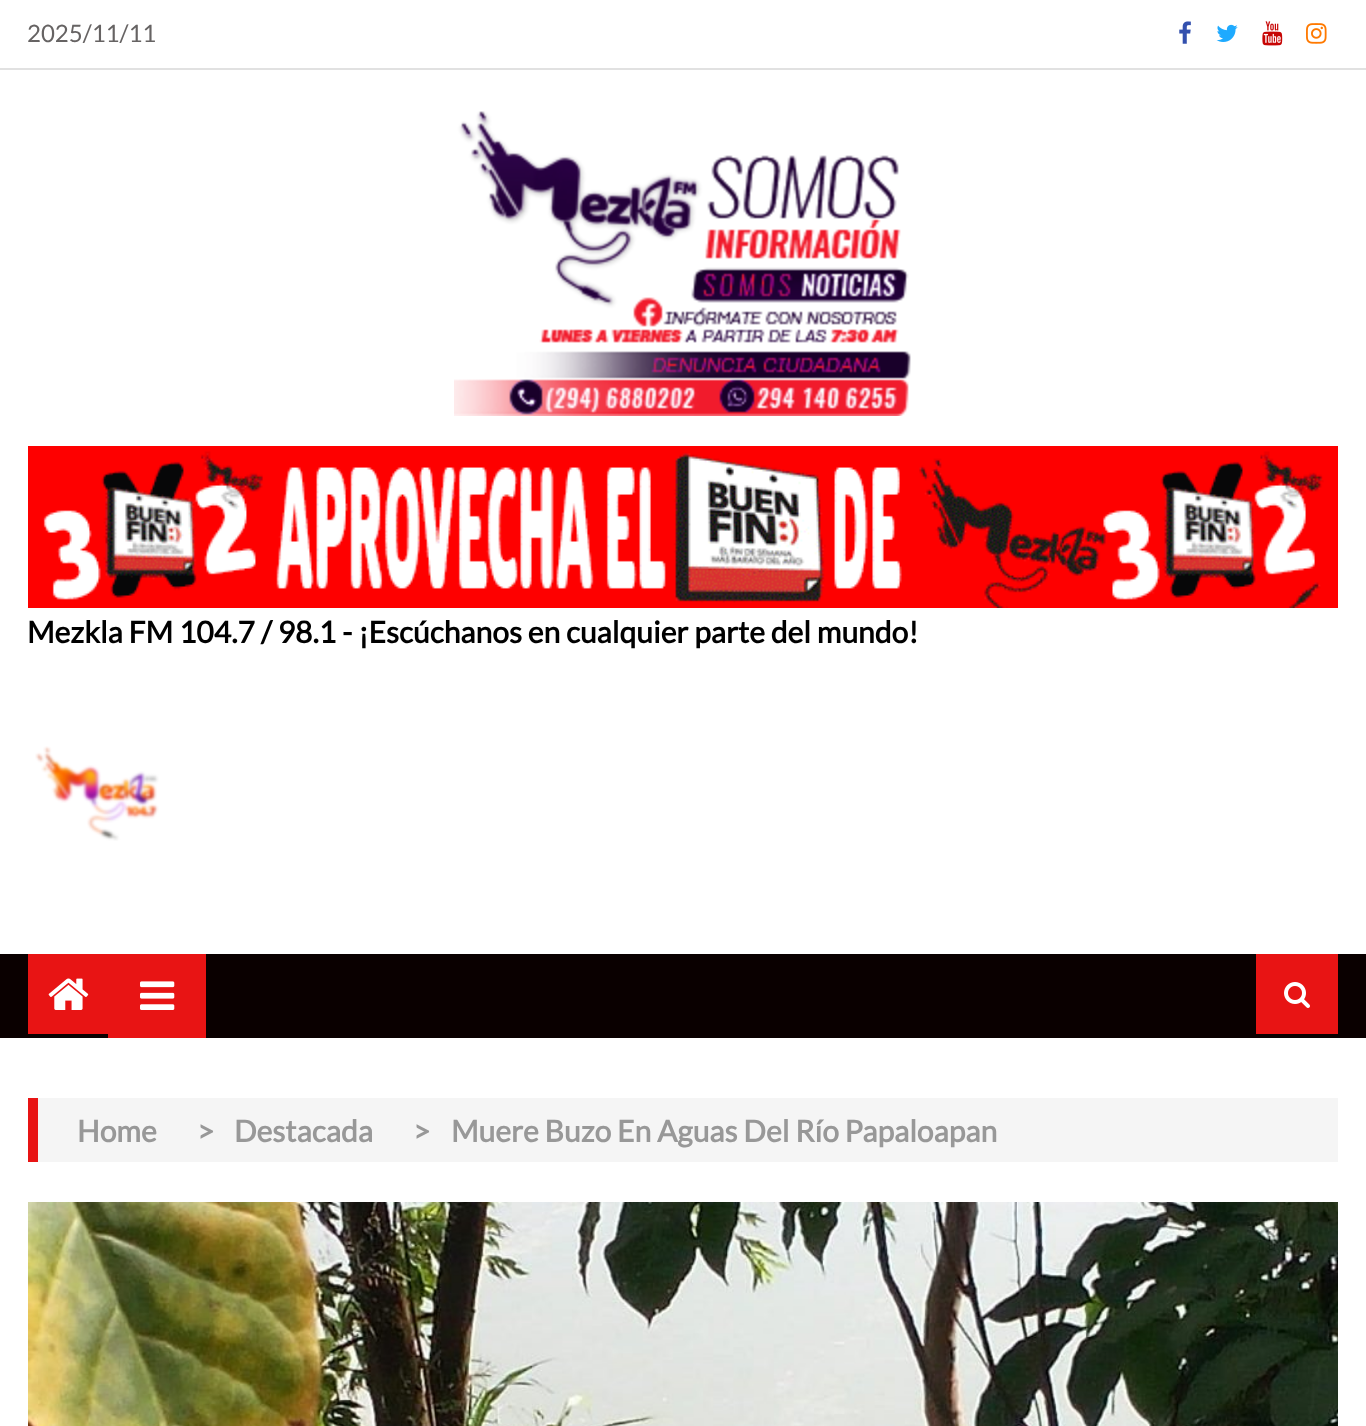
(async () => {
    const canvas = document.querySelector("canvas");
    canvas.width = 1366;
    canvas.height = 1426;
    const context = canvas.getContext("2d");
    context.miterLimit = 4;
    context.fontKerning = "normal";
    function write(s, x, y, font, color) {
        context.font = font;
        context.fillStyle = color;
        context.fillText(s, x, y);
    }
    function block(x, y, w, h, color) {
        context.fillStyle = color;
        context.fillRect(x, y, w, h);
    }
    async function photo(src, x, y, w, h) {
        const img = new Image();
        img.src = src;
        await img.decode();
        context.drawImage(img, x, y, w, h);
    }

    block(0, 0, 1366, 1426, "rgb(255, 255, 255)");
    block(0, 68, 1366, 2, "rgb(225, 225, 225)");
    write("2025/11/11", 27, 42, "24px Lato", "rgb(102, 99, 99)");
    await photo("media/1.png", 1179, 21, 12, 23);
    await photo("media/2.png", 1216, 24, 22, 18);
    await photo("media/3.png", 1262, 21, 21, 25);
    await photo("media/4.png", 1306, 23, 21, 21);
    await photo("media/5.png", 454, 111, 457, 305);
    await photo("media/6.png", 28, 446, 1310, 162);
    write("Mezkla FM 104.7 / 98.1 - ¡Escúchanos en cualquier parte del mundo!", 27, 643, "bold 30px Lato", "rgb(0, 0, 0)");
    await photo("media/7.png", 35, 746, 124, 95);
    block(0, 954, 1366, 84, "rgb(10, 0, 0)");
    block(28, 954, 80, 80, "rgb(232, 20, 20)");
    await photo("media/8.png", 48, 978, 41, 32);
    block(108, 954, 98, 84, "rgb(232, 20, 20)");
    await photo("media/9.png", 140, 981, 35, 29);
    block(1256, 954, 82, 80, "rgb(232, 20, 20)");
    await photo("media/10.png", 1284, 982, 26, 26);
    block(38, 1098, 1300, 64, "rgb(245, 245, 245)");
    block(28, 1098, 10, 64, "rgb(232, 20, 20)");
    write("Home", 77, 1142, "bold 30px Lato", "rgb(152, 152, 152)");
    write(">", 197, 1142, "bold 30px Lato", "rgb(152, 152, 152)");
    write("Destacada", 234, 1142, "bold 30px Lato", "rgb(152, 152, 152)");
    write(">", 413, 1142, "bold 30px Lato", "rgb(152, 152, 152)");
    write("Muere Buzo En Aguas Del Río Papaloapan", 451, 1142, "bold 30px Lato", "rgb(152, 152, 152)");
    await photo("media/11.png", 28, 1202, 1310, 224);
})();
